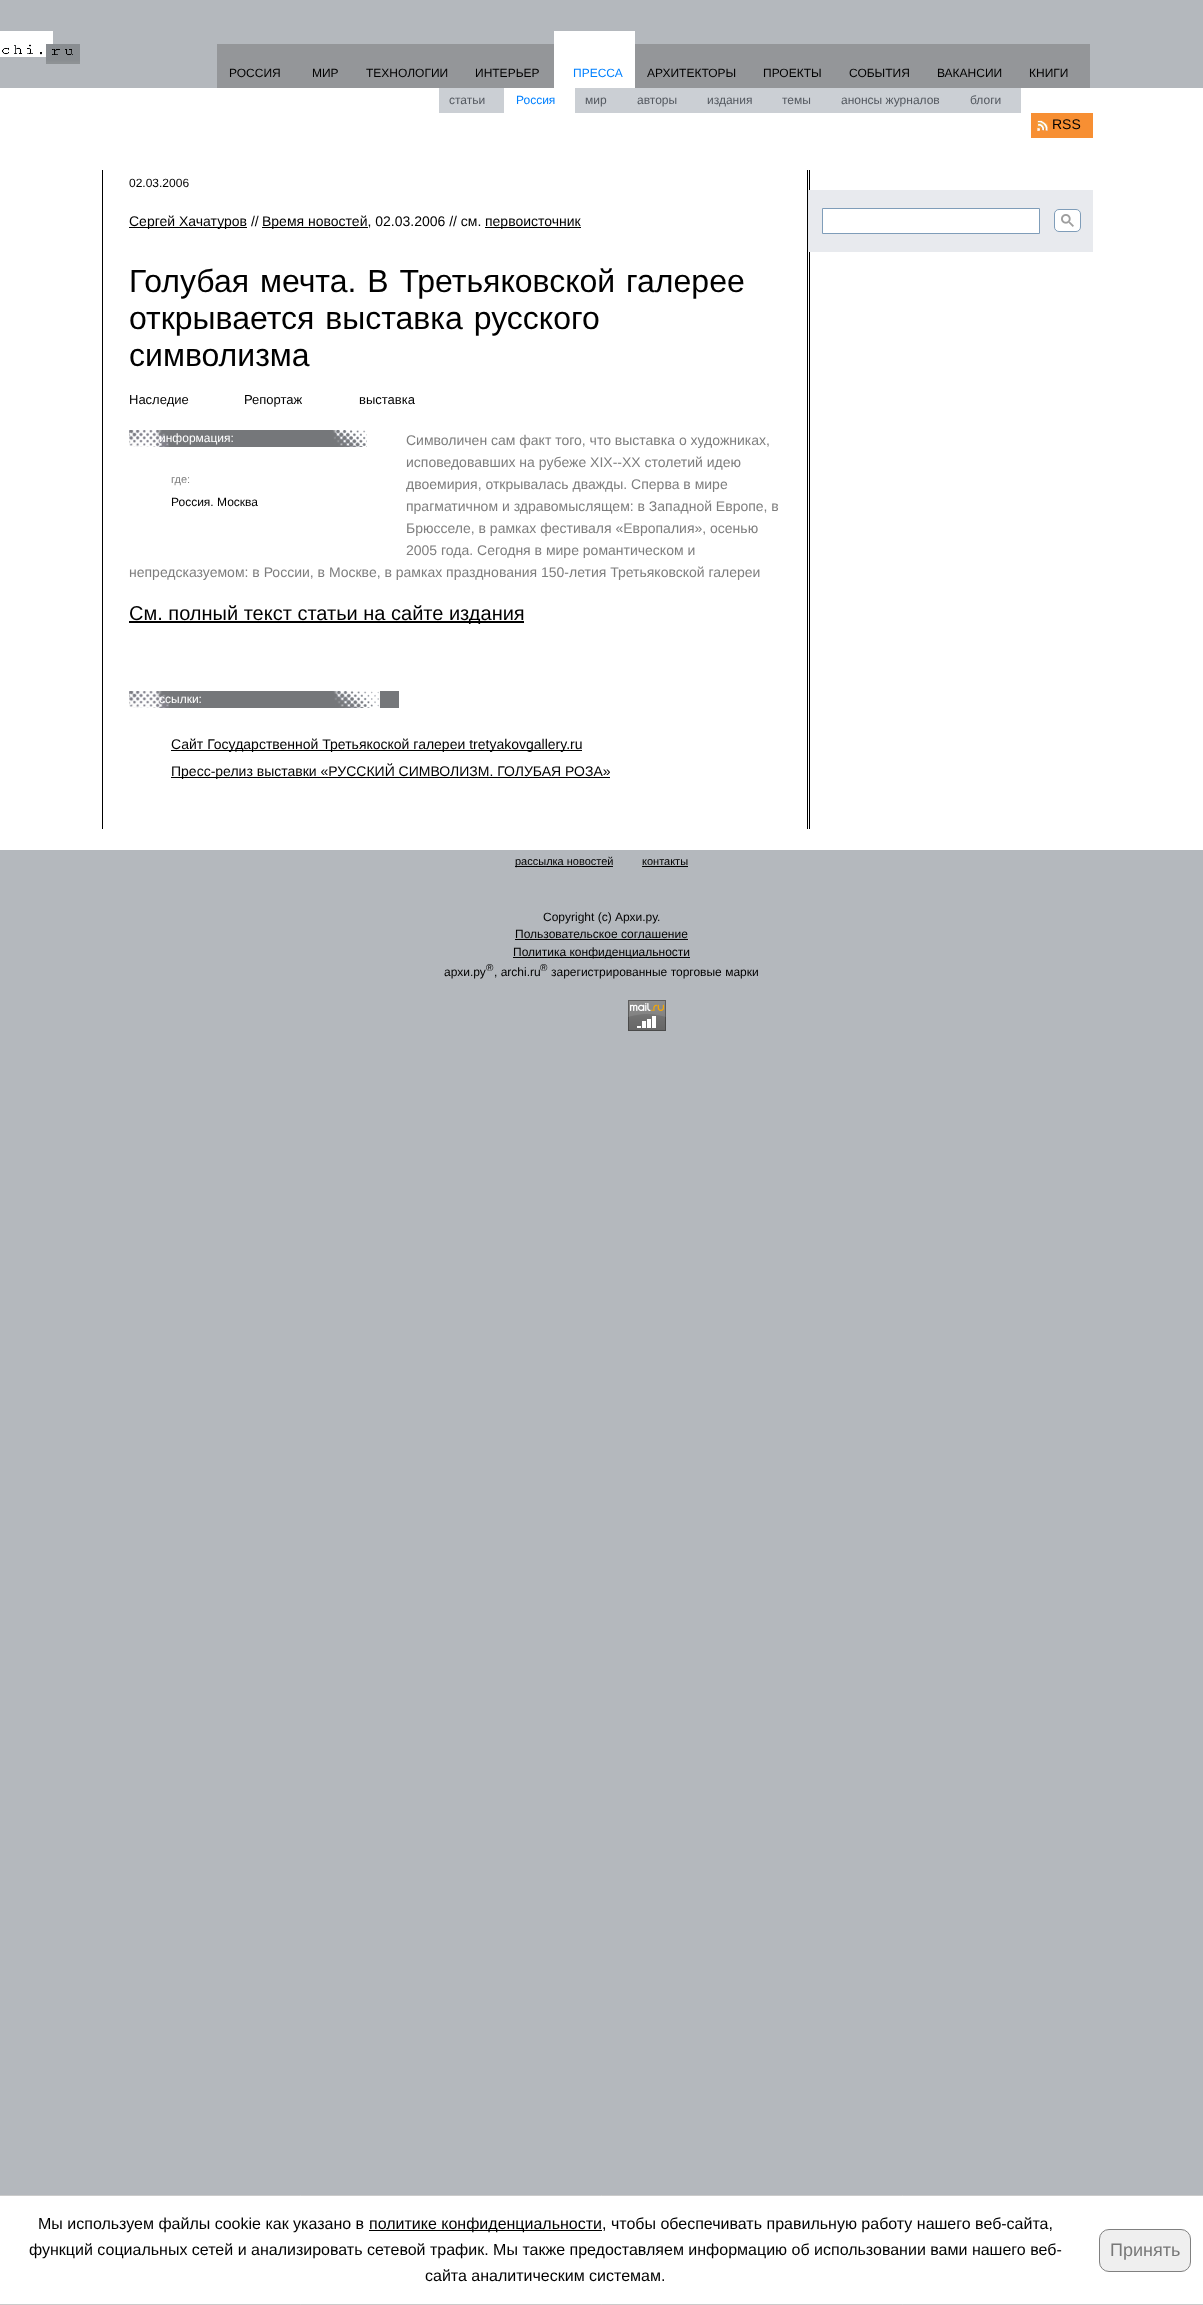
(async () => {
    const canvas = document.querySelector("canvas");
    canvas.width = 1203;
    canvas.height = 2305;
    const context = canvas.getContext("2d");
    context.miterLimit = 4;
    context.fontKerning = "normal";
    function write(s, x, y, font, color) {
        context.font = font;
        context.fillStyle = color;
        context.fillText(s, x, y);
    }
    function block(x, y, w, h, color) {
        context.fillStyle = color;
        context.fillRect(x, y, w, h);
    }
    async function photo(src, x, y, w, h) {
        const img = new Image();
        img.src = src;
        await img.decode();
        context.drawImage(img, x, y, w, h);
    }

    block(0, 0, 1203, 2305, "rgb(180, 184, 189)");
    await photo("media/1.png", 0, 31, 80, 33);
    block(217, 44, 337, 44, "rgb(148, 150, 153)");
    write("РОССИЯ", 229, 77, "12px Liberation Sans", "rgb(0, 0, 0)");
    write("МИР", 312, 77, "12px Liberation Sans", "rgb(0, 0, 0)");
    write("ТЕХНОЛОГИИ", 366, 77, "12px Liberation Sans", "rgb(0, 0, 0)");
    block(554, 31, 81, 57, "rgb(255, 255, 255)");
    write("ПРЕССА", 573, 77, "12px Liberation Sans", "rgb(0, 128, 255)");
    block(0, 88, 1203, 762, "rgb(255, 255, 255)");
    block(439, 88, 65, 25, "rgb(203, 207, 212)");
    write("статьи", 449, 104, "12px Liberation Sans", "rgb(84, 89, 96)");
    write("Россия", 516, 104, "12px Liberation Sans", "rgb(0, 128, 255)");
    block(575, 88, 446, 25, "rgb(203, 207, 212)");
    write("мир", 585, 104, "12px Liberation Sans", "rgb(84, 89, 96)");
    write("авторы", 637, 104, "12px Liberation Sans", "rgb(84, 89, 96)");
    write("издания", 707, 104, "12px Liberation Sans", "rgb(84, 89, 96)");
    write("темы", 782, 104, "12px Liberation Sans", "rgb(84, 89, 96)");
    write("анонсы журналов", 841, 104, "12px Liberation Sans", "rgb(84, 89, 96)");
    write("блоги", 970, 104, "12px Liberation Sans", "rgb(84, 89, 96)");
    write("ИНТЕРЬЕР", 475, 77, "12px Liberation Sans", "rgb(0, 0, 0)");
    block(635, 44, 455, 44, "rgb(148, 150, 153)");
    write("АРХИТЕКТОРЫ", 647, 77, "12px Liberation Sans", "rgb(0, 0, 0)");
    write("ПРОЕКТЫ", 763, 77, "12px Liberation Sans", "rgb(0, 0, 0)");
    write("СОБЫТИЯ", 849, 77, "12px Liberation Sans", "rgb(0, 0, 0)");
    write("ВАКАНСИИ", 937, 77, "12px Liberation Sans", "rgb(0, 0, 0)");
    write("КНИГИ", 1029, 77, "12px Liberation Sans", "rgb(0, 0, 0)");
    block(1031, 113, 62, 25, "rgb(247, 143, 51)");
    await photo("media/2.png", 1036, 120, 12, 11);
    write("RSS", 1052, 129, "14px Liberation Sans", "rgb(0, 0, 0)");
    await photo("media/3.png", 102, 170, 708, 659);
    write("02.03.2006", 129, 187, "12px Liberation Sans", "rgb(0, 0, 0)");
    block(129, 227, 118, 1, "rgb(0, 0, 0)");
    write("Сергей Хачатуров //", 129, 226, "14px Liberation Sans", "rgb(0, 0, 0)");
    block(262, 227, 106, 1, "rgb(0, 0, 0)");
    write("Время новостей, 02.03.2006 // см.", 262, 226, "14px Liberation Sans", "rgb(0, 0, 0)");
    block(485, 227, 96, 1, "rgb(0, 0, 0)");
    write("первоисточник", 485, 226, "14px Liberation Sans", "rgb(0, 0, 0)");
    context.wordSpacing = "2px";
    write("Голубая мечта. В Третьяковской галерее", 129, 292, "32px Liberation Sans", "rgb(0, 0, 0)");
    write("открывается выставка русского", 129, 329, "32px Liberation Sans", "rgb(0, 0, 0)");
    context.wordSpacing = "0px";
    write("символизма", 129, 366, "32px Liberation Sans", "rgb(0, 0, 0)");
    write("Наследие", 129, 404, "13px Liberation Sans", "rgb(0, 0, 0)");
    write("Репортаж", 244, 404, "13px Liberation Sans", "rgb(0, 0, 0)");
    write("выставка", 359, 404, "13px Liberation Sans", "rgb(0, 0, 0)");
    await photo("media/4.png", 129, 430, 238, 17);
    write("информация:", 159, 442, "12px Liberation Sans", "rgb(255, 255, 255)");
    write("где:", 171, 483, "11px Liberation Sans", "rgb(126, 126, 126)");
    write("Россия. Москва", 171, 506, "12px Liberation Sans", "rgb(0, 0, 0)");
    write("Символичен сам факт того, что выставка о художниках,", 406, 445, "14px Liberation Sans", "rgb(126, 126, 126)");
    write("исповедовавших на рубеже XIX--XX столетий идею", 406, 467, "14px Liberation Sans", "rgb(126, 126, 126)");
    write("двоемирия, открывалась дважды. Сперва в мире", 406, 489, "14px Liberation Sans", "rgb(126, 126, 126)");
    write("прагматичном и здравомыслящем: в Западной Европе, в", 406, 511, "14px Liberation Sans", "rgb(126, 126, 126)");
    write("Брюсселе, в рамках фестиваля «Европалия», осенью", 406, 533, "14px Liberation Sans", "rgb(126, 126, 126)");
    write("2005 года. Сегодня в мире романтическом и", 406, 555, "14px Liberation Sans", "rgb(126, 126, 126)");
    write("непредсказуемом: в России, в Москве, в рамках празднования 150-летия Третьяковской галереи", 129, 577, "14px Liberation Sans", "rgb(126, 126, 126)");
    block(129, 621, 395, 2, "rgb(0, 0, 0)");
    write("См. полный текст статьи на сайте издания", 129, 620, "20px Liberation Sans", "rgb(0, 0, 0)");
    block(380, 691, 19, 17, "rgb(117, 119, 122)");
    await photo("media/5.png", 129, 691, 251, 17);
    write("ссылки:", 159, 703, "12px Liberation Sans", "rgb(255, 255, 255)");
    block(171, 750, 411, 1, "rgb(0, 0, 0)");
    write("Сайт Государственной Третьякоской галереи tretyakovgallery.ru", 171, 749, "14px Liberation Sans", "rgb(0, 0, 0)");
    block(171, 777, 439, 1, "rgb(0, 0, 0)");
    write("Пресс-релиз выставки «РУССКИЙ СИМВОЛИЗМ. ГОЛУБАЯ РОЗА»", 171, 776, "14px Liberation Sans", "rgb(0, 0, 0)");
    block(808, 190, 285, 62, "rgb(232, 234, 238)");
    context.fillStyle = "rgb(255, 255, 255)";
    context.beginPath();
    context.rect(822.5, 208.5, 217, 25);
    context.fill();
    context.strokeStyle = "rgb(127, 157, 185)";
    context.stroke();
    context.beginPath();
    context.roundRect(1054.5, 209.5, 26, 22, 4.5);
    context.fill();
    context.stroke();
    await photo("media/6.png", 1061, 214, 13, 13);
    block(515, 866, 98, 1, "rgb(0, 0, 0)");
    write("рассылка новостей", 515, 865, "11px Liberation Sans", "rgb(0, 0, 0)");
    write("контакты", 642, 865, "11px Liberation Sans", "rgb(0, 0, 0)");
    block(642, 866, 46, 1, "rgb(0, 0, 0)");
    write("Copyright (c) Архи.ру.", 543, 921, "12px Liberation Sans", "rgb(0, 0, 0)");
    write("Пользовательское соглашение", 515, 938, "12px Liberation Sans", "rgb(0, 0, 0)");
    block(515, 939, 173, 1, "rgb(0, 0, 0)");
    block(513, 957, 177, 1, "rgb(0, 0, 0)");
    write("Политика конфиденциальности", 513, 956, "12px Liberation Sans", "rgb(0, 0, 0)");
    write("архи.ру", 444, 976, "12px Liberation Sans", "rgb(0, 0, 0)");
    write("®", 486, 971, "10px Liberation Sans", "rgb(0, 0, 0)");
    write(", archi.ru", 494, 976, "12px Liberation Sans", "rgb(0, 0, 0)");
    write("®", 540, 971, "10px Liberation Sans", "rgb(0, 0, 0)");
    write("зарегистрированные торговые марки", 551, 976, "12px Liberation Sans", "rgb(0, 0, 0)");
    await photo("media/7.png", 628, 1000, 38, 31);
    context.fillStyle = "rgb(255, 255, 255)";
    context.beginPath();
    context.rect(-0.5, 2195.5, 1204, 109);
    context.fill();
    context.strokeStyle = "rgb(203, 203, 203)";
    context.stroke();
    write("Мы используем файлы cookie как указано в", 38, 2229, "16px Liberation Sans", "rgb(0, 0, 0)");
    block(369, 2230, 233, 1, "rgb(0, 0, 0)");
    write("политике конфиденциальности, чтобы обеспечивать правильную работу нашего веб-сайта,", 369, 2229, "16px Liberation Sans", "rgb(0, 0, 0)");
    write("функций социальных сетей и анализировать сетевой трафик. Мы также предоставляем информацию об использовании вами нашего веб-", 29, 2255, "16px Liberation Sans", "rgb(0, 0, 0)");
    write("сайта аналитическим системам.", 425, 2281, "16px Liberation Sans", "rgb(0, 0, 0)");
    context.fillStyle = "rgb(239, 239, 239)";
    context.beginPath();
    context.roundRect(1099.5, 2229.5, 91, 42, 9.5);
    context.fill();
    context.strokeStyle = "rgb(128, 128, 128)";
    context.stroke();
    write("Принять", 1110, 2256, "18px Liberation Sans", "rgb(120, 120, 120)");
})();
